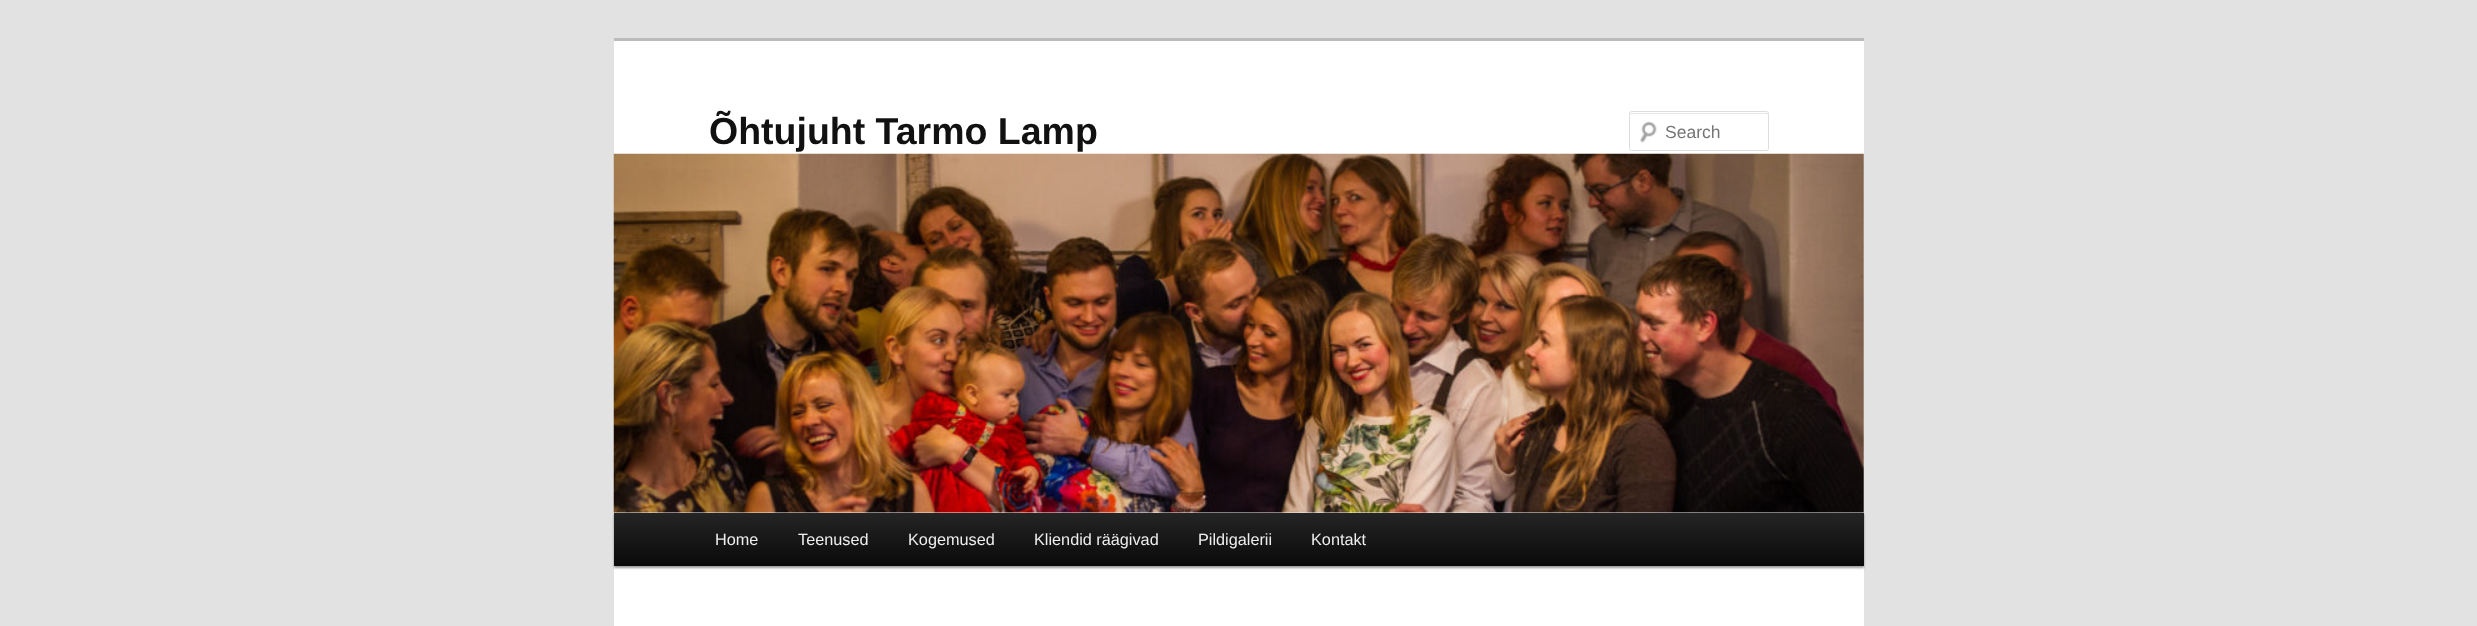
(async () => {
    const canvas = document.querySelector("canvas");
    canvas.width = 2477;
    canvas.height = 626;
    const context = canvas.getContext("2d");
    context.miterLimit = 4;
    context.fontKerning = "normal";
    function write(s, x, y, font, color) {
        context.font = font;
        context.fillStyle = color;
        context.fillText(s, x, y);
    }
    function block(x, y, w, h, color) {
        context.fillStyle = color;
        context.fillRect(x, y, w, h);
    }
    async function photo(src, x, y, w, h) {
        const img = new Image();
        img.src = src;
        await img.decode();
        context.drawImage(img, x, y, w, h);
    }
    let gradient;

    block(0, 0, 2477, 626, "rgb(226, 226, 226)");
    block(614, 41, 1250, 585, "rgb(255, 255, 255)");
    block(614, 38, 1250, 3, "rgb(187, 187, 187)");
    write("Õhtujuht Tarmo Lamp", 709, 144, "bold 37.5px Liberation Sans", "rgb(17, 17, 17)");
    await photo("media/1.png", 1640, 121, 17, 22);
    context.fillStyle = "rgb(230, 230, 230)";
    context.beginPath();
    context.moveTo(1631, 114);
    context.lineTo(1766, 114);
    context.bezierCurveTo(1767, 114, 1768, 114, 1768, 115);
    context.bezierCurveTo(1768, 114, 1768, 113, 1767, 113);
    context.lineTo(1631, 113);
    context.bezierCurveTo(1630, 113, 1630, 114, 1630, 115);
    context.closePath();
    context.fill();
    context.beginPath();
    context.roundRect(1629.5, 111.5, 139, 39, 2);
    context.strokeStyle = "rgb(221, 221, 221)";
    context.stroke();
    write("Search", 1665, 138, "17.5px Liberation Sans", "rgb(117, 117, 117)");
    context.fillStyle = "rgba(0, 0, 0, 0.4)";
    context.filter = "blur(1px)";
    context.beginPath();
    context.rect(614, 514, 1250, 54);
    context.fill();
    context.filter = "none";
    await photo("media/2.png", 613, 153, 1251, 360);
    gradient = context.createLinearGradient(1239, 512, 1239, 566);
    gradient.addColorStop(0, "rgb(37, 37, 37)");
    gradient.addColorStop(1, "rgb(10, 10, 10)");
    context.fillStyle = gradient;
    context.fillRect(614, 513, 1250, 53);
    write("Home", 715, 545, "16.25px Liberation Sans", "rgb(238, 238, 238)");
    write("Teenused", 798, 545, "16.25px Liberation Sans", "rgb(238, 238, 238)");
    write("Kogemused", 908, 545, "16.25px Liberation Sans", "rgb(238, 238, 238)");
    write("Kliendid räägivad", 1034, 545, "16.25px Liberation Sans", "rgb(238, 238, 238)");
    write("Pildigalerii", 1198, 545, "16.25px Liberation Sans", "rgb(238, 238, 238)");
    write("Kontakt", 1311, 545, "16.25px Liberation Sans", "rgb(238, 238, 238)");
})();
